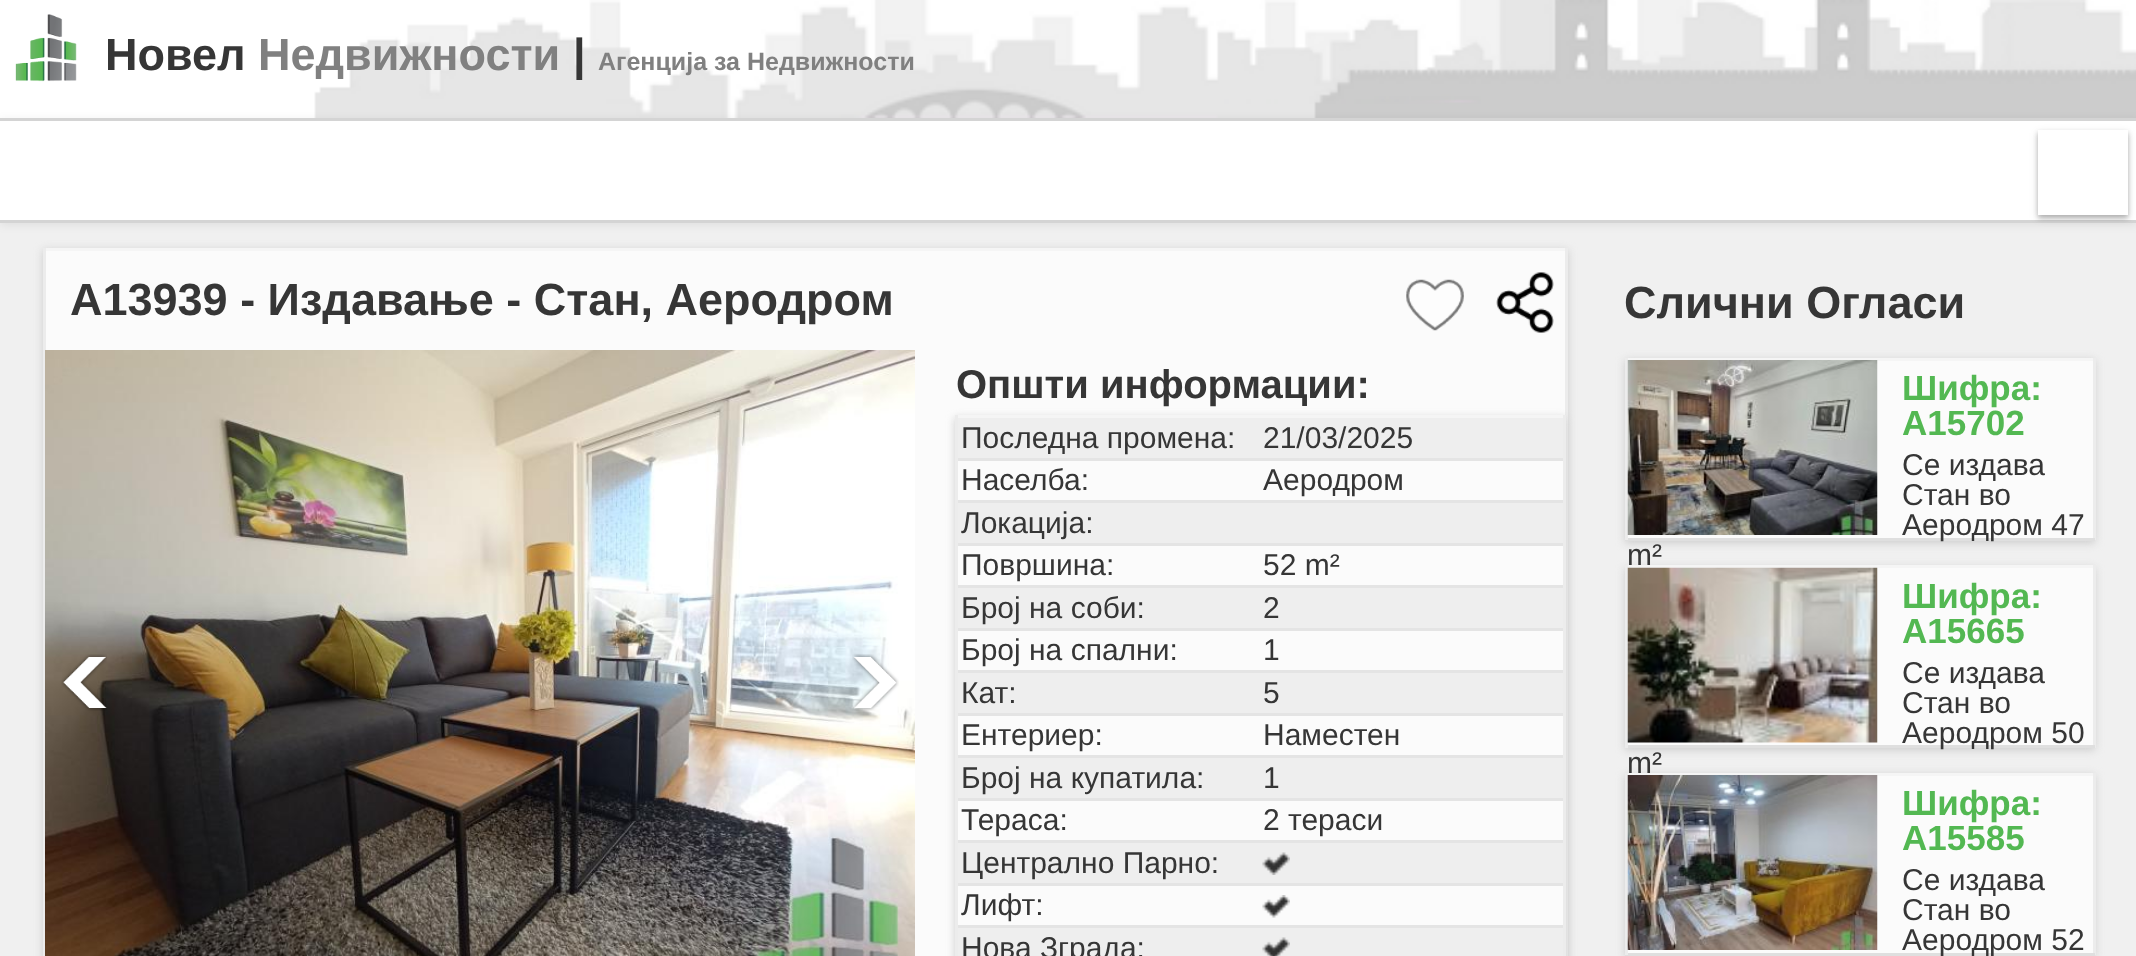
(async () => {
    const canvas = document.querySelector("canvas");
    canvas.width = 2136;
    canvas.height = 956;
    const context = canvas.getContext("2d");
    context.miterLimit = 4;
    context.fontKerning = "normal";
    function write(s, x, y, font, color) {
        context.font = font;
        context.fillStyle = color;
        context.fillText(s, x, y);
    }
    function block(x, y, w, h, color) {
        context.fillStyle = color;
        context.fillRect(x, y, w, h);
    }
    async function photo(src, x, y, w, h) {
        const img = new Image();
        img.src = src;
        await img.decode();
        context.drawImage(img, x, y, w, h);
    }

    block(0, 0, 2136, 956, "rgb(240, 240, 240)");
    block(0, 0, 314, 118, "rgb(255, 255, 255)");
    await photo("media/1.png", 15, 14, 62, 68);
    await photo("media/2.png", 314, 0, 1822, 118);
    write("Новел", 105, 70, "bold 45px Liberation Sans", "rgb(54, 54, 54)");
    write("Недвижности", 258, 70, "bold 45px Liberation Sans", "rgb(128, 128, 128)");
    write("|", 573, 70, "bold 45px Liberation Sans", "rgb(54, 54, 54)");
    write("Агенција за Недвижности", 598, 70, "bold 25px Liberation Sans", "rgb(128, 128, 128)");
    context.fillStyle = "rgba(0, 0, 0, 0.07)";
    context.filter = "blur(5px)";
    context.beginPath();
    context.rect(0, 120, 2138, 105);
    context.fill();
    context.filter = "none";
    block(0, 121, 2136, 99, "rgb(255, 255, 255)");
    block(0, 118, 2136, 3, "rgb(212, 212, 212)");
    block(0, 220, 2136, 3, "rgb(212, 212, 212)");
    context.fillStyle = "rgba(0, 0, 0, 0.24)";
    context.filter = "blur(2.5px)";
    context.beginPath();
    context.rect(2038, 133, 90, 85);
    context.fill();
    context.filter = "none";
    context.fillStyle = "rgba(0, 0, 0, 0.12)";
    context.filter = "blur(4px)";
    context.beginPath();
    context.rect(2038, 133, 90, 85);
    context.fill();
    context.filter = "none";
    block(2038, 130, 90, 85, "rgb(255, 255, 255)");
    context.fillStyle = "rgb(204, 204, 204)";
    context.filter = "blur(4px)";
    context.beginPath();
    context.rect(43, 250, 1525, 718);
    context.fill();
    context.filter = "none";
    block(46, 251, 1519, 705, "rgb(251, 251, 251)");
    block(43, 248, 1525, 3, "rgb(245, 245, 245)");
    block(1565, 248, 3, 708, "rgb(236, 236, 236)");
    block(43, 248, 3, 708, "rgb(236, 236, 236)");
    write("A13939 - Издавање - Стан, Аеродром", 70, 315, "bold 45px Liberation Sans", "rgb(54, 54, 54)");
    await photo("media/3.png", 1406, 279, 58, 52);
    await photo("media/4.png", 1496, 272, 58, 61);
    await photo("media/5.png", 45, 350, 870, 606);
    await photo("media/6.png", 61, 654, 46, 57);
    await photo("media/7.png", 852, 654, 47, 57);
    context.save();
    context.beginPath();
    context.moveTo(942, 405);
    context.lineTo(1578, 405);
    context.lineTo(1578, 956);
    context.lineTo(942, 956);
    context.closePath();
    context.moveTo(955, 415);
    context.lineTo(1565, 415);
    context.lineTo(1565, 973);
    context.lineTo(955, 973);
    context.closePath();
    context.clip("evenodd");
    context.fillStyle = "rgb(204, 204, 204)";
    context.filter = "blur(4px)";
    context.beginPath();
    context.rect(955, 418, 610, 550);
    context.fill();
    context.filter = "none";
    context.restore();
    write("Општи информации:", 956, 398, "bold 40px Liberation Sans", "rgb(54, 54, 54)");
    block(955, 415, 610, 3, "rgb(245, 245, 245)");
    block(1563, 415, 3, 541, "rgb(236, 236, 236)");
    block(955, 415, 3, 541, "rgb(236, 236, 236)");
    block(958, 418, 605, 40, "rgb(238, 238, 238)");
    block(958, 458, 605, 3, "rgb(228, 228, 228)");
    write("Последна промена:", 961, 448, "30px Liberation Sans", "rgb(54, 54, 54)");
    write("21/03/2025", 1263, 448, "30px Liberation Sans", "rgb(54, 54, 54)");
    block(958, 500, 605, 3, "rgb(228, 228, 228)");
    write("Населба:", 961, 490, "30px Liberation Sans", "rgb(54, 54, 54)");
    write("Аеродром", 1263, 490, "30px Liberation Sans", "rgb(54, 54, 54)");
    block(958, 503, 605, 40, "rgb(238, 238, 238)");
    block(958, 543, 605, 3, "rgb(228, 228, 228)");
    write("Локација:", 961, 533, "30px Liberation Sans", "rgb(54, 54, 54)");
    block(958, 585, 605, 3, "rgb(228, 228, 228)");
    write("Површина:", 961, 575, "30px Liberation Sans", "rgb(54, 54, 54)");
    write("52 m²", 1263, 575, "30px Liberation Sans", "rgb(54, 54, 54)");
    block(958, 588, 605, 40, "rgb(238, 238, 238)");
    block(958, 628, 605, 3, "rgb(228, 228, 228)");
    write("Број на соби:", 961, 618, "30px Liberation Sans", "rgb(54, 54, 54)");
    write("2", 1263, 618, "30px Liberation Sans", "rgb(54, 54, 54)");
    block(958, 670, 605, 3, "rgb(228, 228, 228)");
    write("Број на спални:", 961, 660, "30px Liberation Sans", "rgb(54, 54, 54)");
    write("1", 1263, 660, "30px Liberation Sans", "rgb(54, 54, 54)");
    block(958, 673, 605, 40, "rgb(238, 238, 238)");
    block(958, 713, 605, 3, "rgb(228, 228, 228)");
    write("Кат:", 961, 703, "30px Liberation Sans", "rgb(54, 54, 54)");
    write("5", 1263, 703, "30px Liberation Sans", "rgb(54, 54, 54)");
    block(958, 755, 605, 3, "rgb(228, 228, 228)");
    write("Ентериер:", 961, 745, "30px Liberation Sans", "rgb(54, 54, 54)");
    write("Наместен", 1263, 745, "30px Liberation Sans", "rgb(54, 54, 54)");
    block(958, 758, 605, 40, "rgb(238, 238, 238)");
    block(958, 798, 605, 3, "rgb(228, 228, 228)");
    write("Број на купатила:", 961, 788, "30px Liberation Sans", "rgb(54, 54, 54)");
    write("1", 1263, 788, "30px Liberation Sans", "rgb(54, 54, 54)");
    block(958, 840, 605, 3, "rgb(228, 228, 228)");
    write("Тераса:", 961, 830, "30px Liberation Sans", "rgb(54, 54, 54)");
    write("2 тераси", 1263, 830, "30px Liberation Sans", "rgb(54, 54, 54)");
    block(958, 843, 605, 40, "rgb(238, 238, 238)");
    block(958, 883, 605, 3, "rgb(228, 228, 228)");
    write("Централно Парно:", 961, 873, "30px Liberation Sans", "rgb(54, 54, 54)");
    await photo("media/8.png", 1262, 852, 28, 23);
    block(958, 925, 605, 3, "rgb(228, 228, 228)");
    write("Лифт:", 961, 915, "30px Liberation Sans", "rgb(54, 54, 54)");
    await photo("media/9.png", 1262, 895, 28, 23);
    block(958, 928, 605, 28, "rgb(238, 238, 238)");
    write("Нова Зграда:", 961, 958, "30px Liberation Sans", "rgb(54, 54, 54)");
    await photo("media/10.png", 1262, 937, 28, 19);
    write("Слични Огласи", 1624, 318, "bold 45px Liberation Sans", "rgb(54, 54, 54)");
    context.fillStyle = "rgb(204, 204, 204)";
    context.filter = "blur(4px)";
    context.beginPath();
    context.rect(1625, 360, 470, 183);
    context.fill();
    context.filter = "none";
    block(1628, 361, 465, 177, "rgb(251, 251, 251)");
    block(1625, 358, 470, 3, "rgb(245, 245, 245)");
    block(2093, 358, 3, 182, "rgb(236, 236, 236)");
    block(1625, 538, 470, 3, "rgb(223, 223, 223)");
    block(1625, 358, 3, 182, "rgb(236, 236, 236)");
    await photo("media/11.png", 1627, 360, 251, 175);
    write("Шифра:", 1902, 400, "bold 35px Liberation Sans", "rgb(83, 184, 82)");
    write("A15702", 1902, 435, "bold 35px Liberation Sans", "rgb(83, 184, 82)");
    write("Се издава", 1902, 475, "30px Liberation Sans", "rgb(54, 54, 54)");
    write("Стан во", 1902, 505, "30px Liberation Sans", "rgb(54, 54, 54)");
    write("Аеродром 47", 1902, 535, "30px Liberation Sans", "rgb(54, 54, 54)");
    context.fillStyle = "rgb(204, 204, 204)";
    context.filter = "blur(4px)";
    context.beginPath();
    context.rect(1625, 568, 470, 182);
    context.fill();
    context.filter = "none";
    write("m²", 1627, 565, "30px Liberation Sans", "rgb(54, 54, 54)");
    block(1628, 568, 465, 177, "rgb(251, 251, 251)");
    block(1625, 565, 470, 3, "rgb(245, 245, 245)");
    block(2093, 565, 3, 183, "rgb(236, 236, 236)");
    block(1625, 745, 470, 3, "rgb(223, 223, 223)");
    block(1625, 565, 3, 183, "rgb(236, 236, 236)");
    await photo("media/12.png", 1627, 567, 251, 176);
    write("Шифра:", 1902, 608, "bold 35px Liberation Sans", "rgb(83, 184, 82)");
    write("A15665", 1902, 643, "bold 35px Liberation Sans", "rgb(83, 184, 82)");
    write("Се издава", 1902, 683, "30px Liberation Sans", "rgb(54, 54, 54)");
    write("Стан во", 1902, 713, "30px Liberation Sans", "rgb(54, 54, 54)");
    write("Аеродром 50", 1902, 743, "30px Liberation Sans", "rgb(54, 54, 54)");
    context.fillStyle = "rgb(204, 204, 204)";
    context.filter = "blur(4px)";
    context.beginPath();
    context.rect(1625, 775, 470, 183);
    context.fill();
    context.filter = "none";
    write("m²", 1627, 773, "30px Liberation Sans", "rgb(54, 54, 54)");
    block(1628, 776, 465, 177, "rgb(251, 251, 251)");
    block(1625, 773, 470, 3, "rgb(245, 245, 245)");
    block(2093, 773, 3, 182, "rgb(236, 236, 236)");
    block(1625, 953, 470, 3, "rgb(223, 223, 223)");
    block(1625, 773, 3, 182, "rgb(236, 236, 236)");
    await photo("media/13.png", 1627, 775, 251, 175);
    write("Шифра:", 1902, 815, "bold 35px Liberation Sans", "rgb(83, 184, 82)");
    write("A15585", 1902, 850, "bold 35px Liberation Sans", "rgb(83, 184, 82)");
    write("Се издава", 1902, 890, "30px Liberation Sans", "rgb(54, 54, 54)");
    write("Стан во", 1902, 920, "30px Liberation Sans", "rgb(54, 54, 54)");
    write("Аеродром 52", 1902, 950, "30px Liberation Sans", "rgb(54, 54, 54)");
})();
